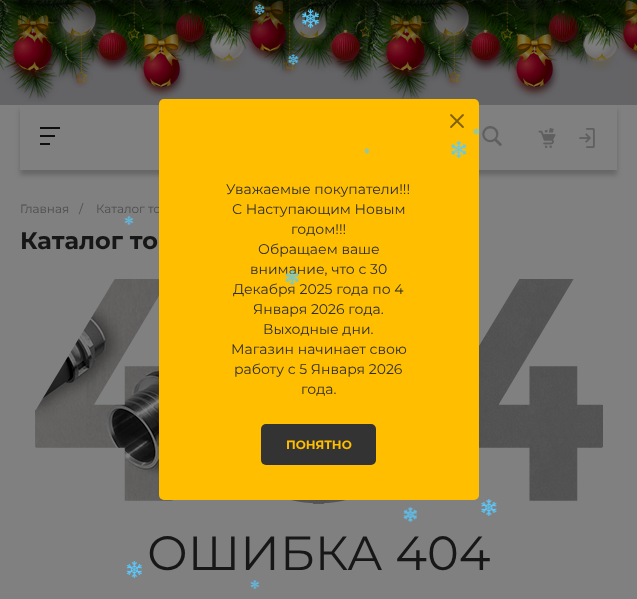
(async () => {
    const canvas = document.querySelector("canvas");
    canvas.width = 637;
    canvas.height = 599;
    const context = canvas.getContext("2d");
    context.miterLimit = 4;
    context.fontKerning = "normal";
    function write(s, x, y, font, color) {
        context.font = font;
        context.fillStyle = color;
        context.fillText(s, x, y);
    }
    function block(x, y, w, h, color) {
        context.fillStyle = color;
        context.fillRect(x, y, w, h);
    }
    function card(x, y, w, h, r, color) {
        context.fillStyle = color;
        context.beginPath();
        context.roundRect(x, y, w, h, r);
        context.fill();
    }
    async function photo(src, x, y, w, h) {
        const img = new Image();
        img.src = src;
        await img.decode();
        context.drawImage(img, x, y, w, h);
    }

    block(0, 0, 637, 599, "rgb(100, 100, 103)");
    await photo("media/1.png", 0, 0, 637, 102);
    await photo("media/3.png", 6, 0, 52, 82);
    await photo("media/2.png", 0, 0, 25, 71);
    await photo("media/5.png", 54, 0, 49, 47);
    await photo("media/4.png", 25, 0, 61, 27);
    await photo("media/6.png", 136, 0, 51, 99);
    await photo("media/7.png", 170, 0, 41, 53);
    await photo("media/13.png", 204, 6, 43, 66);
    await photo("media/8.png", 177, 0, 28, 31);
    await photo("media/10.png", 243, 0, 49, 64);
    await photo("media/9.png", 205, 0, 50, 50);
    await photo("media/11.png", 287, 0, 46, 49);
    await photo("media/12.png", 92, 9, 41, 64);
    await photo("media/16.png", 325, 10, 41, 63);
    await photo("media/14.png", 289, 0, 78, 28);
    await photo("media/15.png", 367, 0, 6, 69);
    await photo("media/3.png", 379, 0, 52, 82);
    await photo("media/2.png", 373, 0, 25, 71);
    await photo("media/5.png", 427, 0, 49, 47);
    await photo("media/4.png", 398, 0, 61, 27);
    await photo("media/6.png", 509, 0, 51, 99);
    await photo("media/7.png", 543, 0, 41, 53);
    await photo("media/13.png", 577, 6, 43, 66);
    await photo("media/8.png", 550, 0, 28, 31);
    await photo("media/17.png", 616, 0, 21, 63);
    await photo("media/9.png", 578, 0, 50, 50);
    await photo("media/12.png", 465, 9, 41, 64);
    context.fillStyle = "rgba(0, 0, 0, 0.75)";
    context.filter = "blur(15px)";
    context.beginPath();
    context.rect(0, -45, 637, 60);
    context.fill();
    context.filter = "none";
    await photo("media/18.png", 254, 4, 12, 11);
    await photo("media/19.png", 302, 9, 18, 19);
    await photo("media/20.png", 287, 54, 12, 11);
    block(0, 105, 637, 494, "rgb(128, 128, 128)");
    context.save();
    context.beginPath();
    context.moveTo(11, 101);
    context.lineTo(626, 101);
    context.lineTo(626, 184);
    context.lineTo(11, 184);
    context.closePath();
    context.moveTo(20, 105);
    context.lineTo(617, 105);
    context.lineTo(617, 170);
    context.lineTo(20, 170);
    context.closePath();
    context.clip("evenodd");
    context.fillStyle = "rgba(0, 0, 0, 0.2)";
    context.filter = "blur(2.5px)";
    context.beginPath();
    context.rect(20, 110, 597, 65);
    context.fill();
    context.filter = "none";
    context.restore();
    write("Каталог то", 96, 213, "12px Montserrat", "rgb(77, 77, 77)");
    await photo("media/29.png", 35, 279, 568, 225);
    card(159, 99, 320, 401, 5, "rgb(255, 191, 0)");
    await photo("media/21.png", 472, 128, 8, 7);
    await photo("media/22.png", 363, 148, 7, 6);
    await photo("media/23.png", 451, 141, 16, 17);
    await photo("media/24.png", 450, 114, 14, 14);
    write("Уважаемые покупатели!!!", 226, 194, "14px Montserrat", "rgb(45, 45, 45)");
    write("С Наступающим Новым", 232, 214, "14px Montserrat", "rgb(45, 45, 45)");
    write("годом!!!", 291, 234, "14px Montserrat", "rgb(45, 45, 45)");
    write("Обращаем ваше", 258, 254, "14px Montserrat", "rgb(45, 45, 45)");
    write("внимание, что с 30", 250, 274, "14px Montserrat", "rgb(45, 45, 45)");
    write("Декабря 2025 года по 4", 233, 294, "14px Montserrat", "rgb(45, 45, 45)");
    write("Января 2026 года.", 253, 314, "14px Montserrat", "rgb(45, 45, 45)");
    write("Выходные дни.", 263, 334, "14px Montserrat", "rgb(45, 45, 45)");
    write("Магазин начинает свою", 231, 354, "14px Montserrat", "rgb(45, 45, 45)");
    write("работу с 5 Января 2026", 234, 374, "14px Montserrat", "rgb(45, 45, 45)");
    write("года.", 301, 394, "14px Montserrat", "rgb(45, 45, 45)");
    card(261, 424, 115, 41, 5, "rgb(51, 51, 51)");
    write("ПОНЯТНО", 286, 449, "bold 12px Montserrat", "rgb(255, 191, 0)");
    await photo("media/25.png", 40, 127, 20, 18);
    await photo("media/26.png", 482, 126, 20, 20);
    await photo("media/27.png", 538, 128, 18, 20);
    await photo("media/28.png", 579, 128, 16, 20);
    write("Главная", 20, 213, "12px Montserrat", "rgb(77, 77, 77)");
    write("/", 79, 213, "12px Montserrat", "rgb(77, 77, 77)");
    write("Каталог то", 20, 249, "bold 24px Montserrat", "rgb(23, 23, 23)");
    write("ОШИБКА 404", 147, 570, "48px Montserrat", "rgb(23, 23, 23)");
    await photo("media/30.png", 124, 216, 10, 9);
    await photo("media/31.png", 285, 270, 14, 15);
    await photo("media/32.png", 403, 507, 14, 15);
    await photo("media/33.png", 481, 499, 16, 17);
    await photo("media/34.png", 126, 561, 16, 17);
    await photo("media/35.png", 250, 580, 10, 9);
})();
